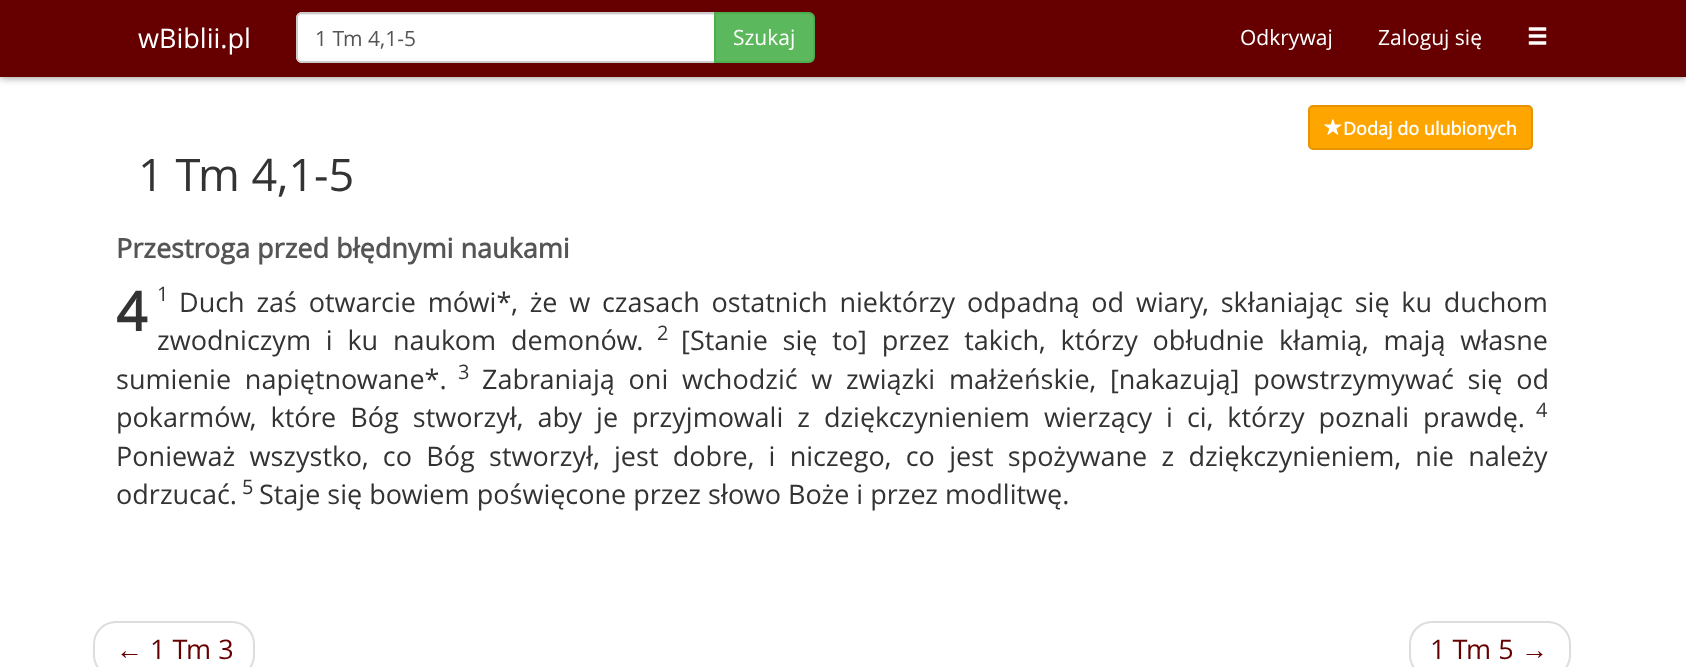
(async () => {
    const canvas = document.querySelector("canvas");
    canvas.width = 1686;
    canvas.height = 667;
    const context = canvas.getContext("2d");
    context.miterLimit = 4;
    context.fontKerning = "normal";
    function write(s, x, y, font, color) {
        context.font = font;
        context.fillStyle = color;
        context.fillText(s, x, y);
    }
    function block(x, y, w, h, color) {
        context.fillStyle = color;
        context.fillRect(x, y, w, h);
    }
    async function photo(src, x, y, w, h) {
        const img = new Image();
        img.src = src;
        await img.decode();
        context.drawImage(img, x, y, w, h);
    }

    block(0, 0, 1686, 667, "rgb(255, 255, 255)");
    context.fillStyle = "rgba(0, 0, 0, 0.5)";
    context.filter = "blur(4px)";
    context.beginPath();
    context.rect(0, 0, 1686, 77);
    context.fill();
    context.filter = "none";
    block(0, 0, 1686, 77, "rgb(102, 0, 0)");
    write("wBiblii.pl", 138, 48, "27px Open Sans", "rgb(255, 255, 255)");
    context.beginPath();
    context.roundRect(296, 12, 420, 51, [6, 0, 0, 6]);
    context.fill();
    context.fillStyle = "rgb(236, 236, 236)";
    context.beginPath();
    context.moveTo(302, 15);
    context.lineTo(714, 15);
    context.lineTo(714, 14);
    context.lineTo(302, 14);
    context.bezierCurveTo(299, 14, 297, 17, 297, 20);
    context.bezierCurveTo(297, 17, 299, 15, 302, 15);
    context.closePath();
    context.fill();
    context.beginPath();
    context.roundRect(297, 13, 418, 49, [5, 0, 0, 5]);
    context.strokeStyle = "rgb(204, 204, 204)";
    context.lineWidth = 2;
    context.stroke();
    write("1 Tm 4,1-5", 315, 46, "21px Open Sans", "rgb(85, 85, 85)");
    context.fillStyle = "rgb(92, 184, 92)";
    context.beginPath();
    context.roundRect(715, 13, 99, 49, [0, 5, 5, 0]);
    context.fill();
    context.strokeStyle = "rgb(76, 174, 76)";
    context.stroke();
    write("Szukaj", 733, 45, "21px Open Sans", "rgb(255, 255, 255)");
    write("Odkrywaj", 1240, 45, "21px Open Sans", "rgb(255, 255, 255)");
    write("Zaloguj się", 1378, 45, "21px Open Sans", "rgb(255, 255, 255)");
    await photo("media/1.png", 1528, 27, 19, 18);
    context.fillStyle = "rgb(255, 165, 0)";
    context.beginPath();
    context.roundRect(1309, 106, 223, 43, 4);
    context.fill();
    context.strokeStyle = "rgb(230, 149, 0)";
    context.stroke();
    await photo("media/2.png", 1324, 119, 18, 16);
    write("Dodaj do ulubionych", 1343, 135, "bold 18px Open Sans", "rgb(255, 255, 255)");
    write("1 Tm 4,1-5", 138, 191, "45px Open Sans", "rgb(51, 51, 51)");
    write("Przestroga przed błędnymi naukami", 116, 258, "bold 27px Open Sans", "rgb(85, 85, 85)");
    write("4", 116, 331, "bold 54px Open Sans", "rgb(51, 51, 51)");
    write("1", 157, 301, "20px Open Sans", "rgb(51, 51, 51)");
    context.wordSpacing = "4.75px";
    write("Duch zaś otwarcie mówi*, że w czasach ostatnich niektórzy odpadną od wiary, skłaniając się ku duchom", 179, 312, "27px Open Sans", "rgb(51, 51, 51)");
    context.wordSpacing = "7.75px";
    write("zwodniczym i ku naukom demonów.", 157, 350, "27px Open Sans", "rgb(51, 51, 51)");
    context.wordSpacing = "0px";
    write("2", 657, 340, "20px Open Sans", "rgb(51, 51, 51)");
    context.wordSpacing = "7.75px";
    write("[Stanie się to] przez takich, którzy obłudnie kłamią, mają własne", 681, 350, "27px Open Sans", "rgb(51, 51, 51)");
    context.wordSpacing = "6.75px";
    write("sumienie napiętnowane*.", 116, 389, "27px Open Sans", "rgb(51, 51, 51)");
    context.wordSpacing = "0px";
    write("3", 458, 379, "20px Open Sans", "rgb(51, 51, 51)");
    context.wordSpacing = "6.75px";
    write("Zabraniają oni wchodzić w związki małżeńskie, [nakazują] powstrzymywać się od", 482, 389, "27px Open Sans", "rgb(51, 51, 51)");
    context.wordSpacing = "7px";
    write("pokarmów, które Bóg stworzył, aby je przyjmowali z dziękczynieniem wierzący i ci, którzy poznali prawdę.", 116, 427, "27px Open Sans", "rgb(51, 51, 51)");
    context.wordSpacing = "0px";
    write("4", 1536, 417, "20px Open Sans", "rgb(51, 51, 51)");
    context.wordSpacing = "7.25px";
    write("Ponieważ wszystko, co Bóg stworzył, jest dobre, i niczego, co jest spożywane z dziękczynieniem, nie należy", 116, 466, "27px Open Sans", "rgb(51, 51, 51)");
    context.wordSpacing = "0px";
    write("odrzucać.", 116, 504, "27px Open Sans", "rgb(51, 51, 51)");
    write("5", 242, 494, "20px Open Sans", "rgb(51, 51, 51)");
    write("Staje się bowiem poświęcone przez słowo Boże i przez modlitwę.", 259, 504, "27px Open Sans", "rgb(51, 51, 51)");
    context.beginPath();
    context.roundRect(94, 622, 160, 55, 22);
    context.strokeStyle = "rgb(221, 221, 221)";
    context.stroke();
    write("←", 116, 659, "27px Liberation Sans", "rgb(102, 0, 0)");
    write("1 Tm 3", 150, 659, "27px Open Sans", "rgb(102, 0, 0)");
    context.beginPath();
    context.roundRect(1410, 622, 160, 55, 22);
    context.stroke();
    write("1 Tm 5", 1430, 659, "27px Open Sans", "rgb(102, 0, 0)");
    write("→", 1521, 659, "27px Liberation Sans", "rgb(102, 0, 0)");
})();
